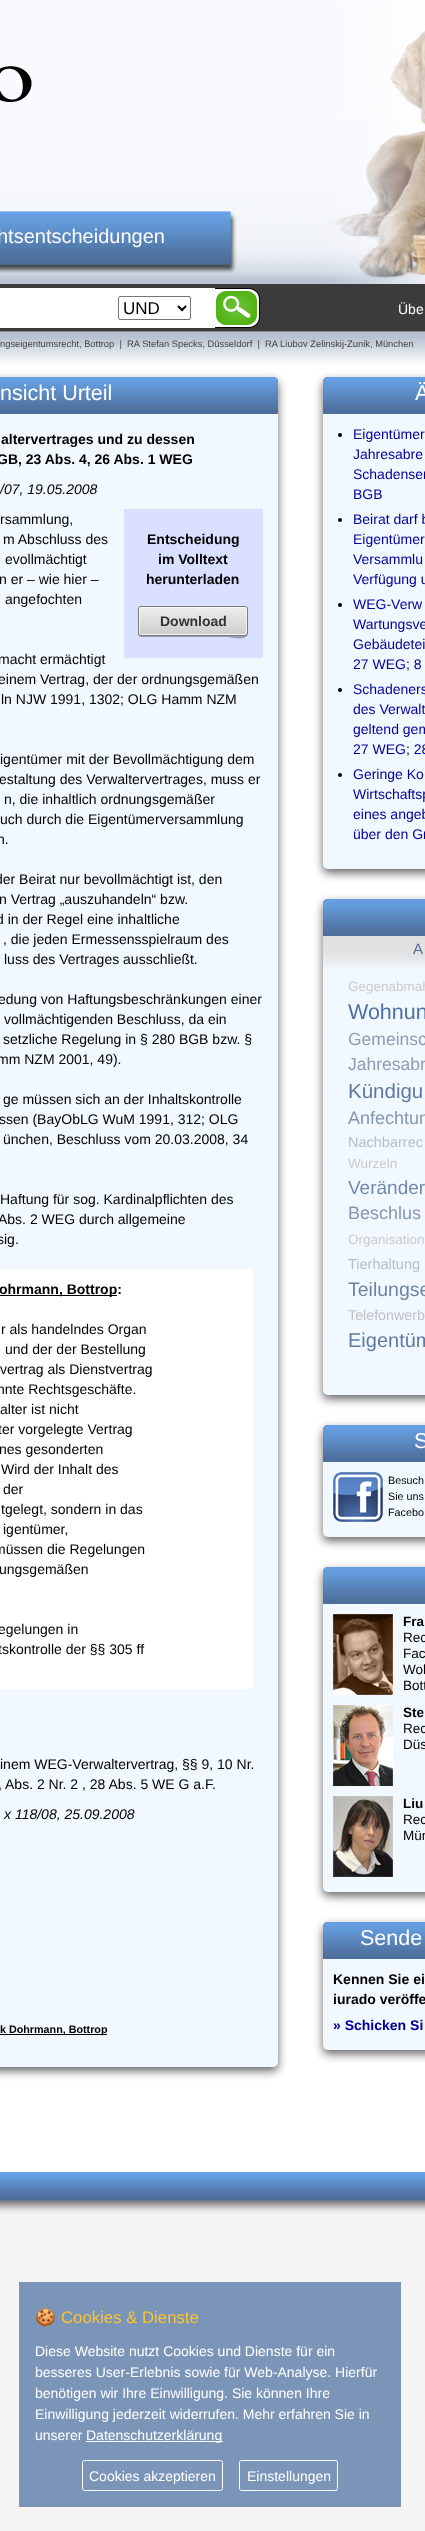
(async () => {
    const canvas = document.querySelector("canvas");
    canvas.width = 425;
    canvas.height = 2531;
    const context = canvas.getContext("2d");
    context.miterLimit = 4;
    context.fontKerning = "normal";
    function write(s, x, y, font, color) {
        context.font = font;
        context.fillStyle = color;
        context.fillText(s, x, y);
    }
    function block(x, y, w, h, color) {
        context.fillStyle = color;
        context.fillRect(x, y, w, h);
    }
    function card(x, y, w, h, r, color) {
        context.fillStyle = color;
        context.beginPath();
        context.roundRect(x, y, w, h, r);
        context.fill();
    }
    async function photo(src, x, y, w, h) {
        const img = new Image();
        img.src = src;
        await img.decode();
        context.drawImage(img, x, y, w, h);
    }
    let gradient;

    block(0, 0, 425, 2531, "rgb(245, 243, 243)");
    context.fillStyle = "rgba(0, 0, 0, 0.6)";
    context.filter = "blur(5px)";
    context.beginPath();
    context.rect(-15, 4, 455, 2201);
    context.fill();
    context.filter = "none";
    block(0, 0, 425, 2172, "rgb(255, 255, 255)");
    await photo("media/1.png", 329, 30, 96, 252);
    await photo("media/2.png", 0, 0, 425, 284);
    write("htsentscheidungen", -3, 243, "20px Liberation Sans", "rgb(255, 255, 255)");
    block(0, 284, 425, 47, "rgb(59, 59, 59)");
    block(0, 331, 425, 1, "rgb(137, 137, 137)");
    block(0, 288, 215, 40, "rgb(255, 255, 255)");
    await photo("media/3.png", 215, 288, 45, 40);
    context.beginPath();
    context.roundRect(118.5, 296.5, 72, 23, 1.5);
    context.strokeStyle = "rgb(118, 118, 118)";
    context.stroke();
    context.beginPath();
    context.moveTo(178, 306);
    context.lineTo(182, 310);
    context.lineTo(186, 306);
    context.strokeStyle = "rgb(0, 0, 0)";
    context.lineWidth = 2;
    context.stroke();
    write("UND", 123, 314, "17px Liberation Sans", "rgb(0, 0, 0)");
    write("Übe", 398, 314, "14px Liberation Sans", "rgb(255, 255, 255)");
    await photo("media/4.png", 0, 332, 425, 32);
    write("ngseigentumsrecht, Bottrop  |  RA Stefan Specks, Düsseldorf  |  RA Liubov Zelinskij-Zunik, München", 0, 347, "9.35px Liberation Sans", "rgb(68, 68, 68)");
    context.fillStyle = "rgba(0, 0, 0, 0.6)";
    context.filter = "blur(5px)";
    context.beginPath();
    context.roundRect(-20, 381, 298, 1690, 5);
    context.fill();
    context.filter = "none";
    card(-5, 377, 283, 1690, 5, "rgb(242, 248, 255)");
    context.fillStyle = "rgb(78, 111, 155)";
    context.beginPath();
    context.moveTo(0, 377);
    context.lineTo(273, 377);
    context.bezierCurveTo(276, 377, 278, 379, 278, 382);
    context.lineTo(278, 414);
    context.lineTo(-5, 414);
    context.lineTo(-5, 382);
    context.bezierCurveTo(-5, 379, -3, 377, 0, 377);
    context.closePath();
    context.fill();
    await photo("media/5.png", 0, 377, 278, 33);
    write("nsicht Urteil", 0, 400, "21.5px Liberation Sans", "rgb(255, 255, 255)");
    write("altervertrages und zu dessen", 1, 444, "bold 14px Liberation Sans", "rgb(0, 0, 0)");
    write("GB, 23 Abs. 4, 26 Abs. 1 WEG", -3, 464, "bold 14px Liberation Sans", "rgb(0, 0, 0)");
    write("/07, 19.05.2008", 0, 494, "italic 14px Liberation Sans", "rgb(0, 0, 0)");
    write("rsammlung,", 0, 524, "14px Liberation Sans", "rgb(0, 0, 0)");
    write("m Abschluss des", 3, 544, "14px Liberation Sans", "rgb(0, 0, 0)");
    write("evollmächtigt", 5, 564, "14px Liberation Sans", "rgb(0, 0, 0)");
    write("n er – wie hier –", -1, 584, "14px Liberation Sans", "rgb(0, 0, 0)");
    write("angefochten", 5, 604, "14px Liberation Sans", "rgb(0, 0, 0)");
    write("macht ermächtigt", -2, 664, "14px Liberation Sans", "rgb(0, 0, 0)");
    write("einem Vertrag, der der ordnungsgemäßen", -2, 684, "14px Liberation Sans", "rgb(0, 0, 0)");
    write("ln NJW 1991, 1302; OLG Hamm NZM", 1, 704, "14px Liberation Sans", "rgb(0, 0, 0)");
    write("igentümer mit der Bevollmächtigung dem", 0, 764, "14px Liberation Sans", "rgb(0, 0, 0)");
    write("estaltung des Verwaltervertrages, muss er", -1, 784, "14px Liberation Sans", "rgb(0, 0, 0)");
    write("n, die inhaltlich ordnungsgemäßer", 4, 804, "14px Liberation Sans", "rgb(0, 0, 0)");
    write("uch durch die Eigentümerversammlung", 0, 824, "14px Liberation Sans", "rgb(0, 0, 0)");
    write("n.", -3, 844, "14px Liberation Sans", "rgb(0, 0, 0)");
    write("der Beirat nur bevollmächtigt ist, den", -5, 884, "14px Liberation Sans", "rgb(0, 0, 0)");
    write("n Vertrag „auszuhandeln“ bzw.", -1, 904, "14px Liberation Sans", "rgb(0, 0, 0)");
    write("d in der Regel eine inhaltliche", -4, 924, "14px Liberation Sans", "rgb(0, 0, 0)");
    write(", die jeden Ermessensspielraum des", 3, 944, "14px Liberation Sans", "rgb(0, 0, 0)");
    write("luss des Vertrages ausschließt.", 4, 964, "14px Liberation Sans", "rgb(0, 0, 0)");
    write("edung von Haftungsbeschränkungen einer", -2, 1004, "14px Liberation Sans", "rgb(0, 0, 0)");
    write("vollmächtigenden Beschluss, da ein", 4, 1024, "14px Liberation Sans", "rgb(0, 0, 0)");
    write("setzliche Regelung in § 280 BGB bzw. §", 3, 1044, "14px Liberation Sans", "rgb(0, 0, 0)");
    write("mm NZM 2001, 49).", -3, 1064, "14px Liberation Sans", "rgb(0, 0, 0)");
    write("ge müssen sich an der Inhaltskontrolle", 3, 1104, "14px Liberation Sans", "rgb(0, 0, 0)");
    write("ssen (BayObLG WuM 1991, 312; OLG", -1, 1124, "14px Liberation Sans", "rgb(0, 0, 0)");
    write("ünchen, Beschluss vom 20.03.2008, 34", 3, 1144, "14px Liberation Sans", "rgb(0, 0, 0)");
    write("Haftung für sog. Kardinalpflichten des", 0, 1204, "14px Liberation Sans", "rgb(0, 0, 0)");
    write("Abs. 2 WEG durch allgemeine", -2, 1224, "14px Liberation Sans", "rgb(0, 0, 0)");
    write("sig.", -3, 1244, "14px Liberation Sans", "rgb(0, 0, 0)");
    block(124, 509, 139, 149, "rgb(218, 224, 255)");
    write("Entscheidung", 147, 544, "bold 14px Liberation Sans", "rgb(0, 0, 0)");
    write("im Volltext", 158, 564, "bold 14px Liberation Sans", "rgb(0, 0, 0)");
    write("herunterladen", 146, 584, "bold 14px Liberation Sans", "rgb(0, 0, 0)");
    context.fillStyle = "rgb(153, 157, 179)";
    context.beginPath();
    context.moveTo(138, 633);
    context.bezierCurveTo(138, 635, 139, 637, 141, 637);
    context.lineTo(228, 637);
    context.bezierCurveTo(228, 637, 248, 642, 248, 633);
    context.lineTo(247, 635);
    context.lineTo(245, 636);
    context.lineTo(141, 636);
    context.bezierCurveTo(139, 636, 138, 635, 138, 633);
    context.closePath();
    context.fill();
    context.save();
    context.beginPath();
    context.roundRect(138, 606, 110, 30, 3);
    context.clip();
    gradient = context.createLinearGradient(193, 607, 193, 635);
    gradient.addColorStop(0, "rgb(238, 238, 238)");
    gradient.addColorStop(1, "rgb(204, 204, 204)");
    context.fillStyle = gradient;
    context.fillRect(138, 607, 110, 28);
    context.restore();
    context.beginPath();
    context.roundRect(139.5, 607.5, 107, 27, 1.5);
    context.strokeStyle = "rgba(255, 255, 255, 0.8)";
    context.lineWidth = 1;
    context.stroke();
    context.beginPath();
    context.roundRect(138.5, 606.5, 109, 29, 2.5);
    context.strokeStyle = "rgb(119, 119, 119)";
    context.stroke();
    write("Download", 160, 626, "bold 14px Liberation Sans", "rgb(51, 51, 51)");
    card(-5, 1269, 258, 420, 5, "rgb(255, 255, 255)");
    block(0, 1295, 117, 1, "rgb(0, 0, 0)");
    write("ohrmann, Bottrop:", -1, 1294, "bold 14px Liberation Sans", "rgb(0, 0, 0)");
    write("r als handelndes Organ", 1, 1334, "14px Liberation Sans", "rgb(0, 0, 0)");
    write("und der der Bestellung", 5, 1354, "14px Liberation Sans", "rgb(0, 0, 0)");
    write("vertrag als Dienstvertrag", 0, 1374, "14px Liberation Sans", "rgb(0, 0, 0)");
    write("nnte Rechtsgeschäfte.", -3, 1394, "14px Liberation Sans", "rgb(0, 0, 0)");
    write("alter ist nicht", 0, 1414, "14px Liberation Sans", "rgb(0, 0, 0)");
    write("ter vorgelegte Vertrag", -2, 1434, "14px Liberation Sans", "rgb(0, 0, 0)");
    write("nes gesonderten", -1, 1454, "14px Liberation Sans", "rgb(0, 0, 0)");
    write("Wird der Inhalt des", 1, 1474, "14px Liberation Sans", "rgb(0, 0, 0)");
    write("der", 3, 1494, "14px Liberation Sans", "rgb(0, 0, 0)");
    write("tgelegt, sondern in das", 1, 1514, "14px Liberation Sans", "rgb(0, 0, 0)");
    write("igentümer,", 3, 1534, "14px Liberation Sans", "rgb(0, 0, 0)");
    write("müssen die Regelungen", -6, 1554, "14px Liberation Sans", "rgb(0, 0, 0)");
    write("ungsgemäßen", -1, 1574, "14px Liberation Sans", "rgb(0, 0, 0)");
    write("egelungen in", -2, 1634, "14px Liberation Sans", "rgb(0, 0, 0)");
    write("tskontrolle der §§ 305 ff", -2, 1654, "14px Liberation Sans", "rgb(0, 0, 0)");
    write("inem WEG-Verwaltervertrag, §§ 9, 10 Nr.", 0, 1769, "14px Liberation Sans", "rgb(0, 0, 0)");
    write(", Abs. 2 Nr. 2 , 28 Abs. 5 WE G a.F.", -2, 1789, "14px Liberation Sans", "rgb(0, 0, 0)");
    write("x 118/08, 25.09.2008", 4, 1819, "italic 14px Liberation Sans", "rgb(0, 0, 0)");
    block(0, 2034, 107, 1, "rgb(0, 0, 0)");
    write("k Dohrmann, Bottrop", 0, 2033, "bold 10.75px Liberation Sans", "rgb(0, 0, 0)");
    context.fillStyle = "rgba(0, 0, 0, 0.6)";
    context.filter = "blur(5px)";
    context.beginPath();
    context.roundRect(323, 381, 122, 492, 5);
    context.fill();
    context.filter = "none";
    card(323, 377, 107, 492, 5, "rgb(242, 248, 255)");
    context.fillStyle = "rgb(78, 111, 155)";
    context.beginPath();
    context.moveTo(328, 377);
    context.lineTo(425, 377);
    context.bezierCurveTo(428, 377, 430, 379, 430, 382);
    context.lineTo(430, 414);
    context.lineTo(323, 414);
    context.lineTo(323, 382);
    context.bezierCurveTo(323, 379, 325, 377, 328, 377);
    context.closePath();
    context.fill();
    await photo("media/6.png", 323, 377, 102, 33);
    write("Ä", 415, 400, "21.5px Liberation Sans", "rgb(255, 255, 255)");
    context.fillStyle = "rgb(0, 0, 0)";
    context.beginPath();
    context.arc(340, 435, 2, 0, Math.PI * 2);
    context.fill();
    write("Eigentümer", 353, 439, "14px Liberation Sans", "rgb(0, 0, 153)");
    write("Jahresabre", 353, 459, "14px Liberation Sans", "rgb(0, 0, 153)");
    write("Schadenser", 353, 479, "14px Liberation Sans", "rgb(0, 0, 153)");
    write("BGB", 353, 499, "14px Liberation Sans", "rgb(0, 0, 153)");
    context.fillStyle = "rgb(0, 0, 0)";
    context.beginPath();
    context.arc(340, 520, 2, 0, Math.PI * 2);
    context.fill();
    write("Beirat darf b", 353, 524, "14px Liberation Sans", "rgb(0, 0, 153)");
    write("Eigentümer", 353, 544, "14px Liberation Sans", "rgb(0, 0, 153)");
    write("Versammlu", 353, 564, "14px Liberation Sans", "rgb(0, 0, 153)");
    write("Verfügung u", 353, 584, "14px Liberation Sans", "rgb(0, 0, 153)");
    context.fillStyle = "rgb(0, 0, 0)";
    context.beginPath();
    context.arc(340, 605, 2, 0, Math.PI * 2);
    context.fill();
    write("WEG-Verw", 353, 609, "14px Liberation Sans", "rgb(0, 0, 153)");
    write("Wartungsve", 353, 629, "14px Liberation Sans", "rgb(0, 0, 153)");
    write("Gebäudetei", 353, 649, "14px Liberation Sans", "rgb(0, 0, 153)");
    write("27 WEG; 8", 353, 669, "14px Liberation Sans", "rgb(0, 0, 153)");
    context.fillStyle = "rgb(0, 0, 0)";
    context.beginPath();
    context.arc(340, 690, 2, 0, Math.PI * 2);
    context.fill();
    write("Schadeners", 353, 694, "14px Liberation Sans", "rgb(0, 0, 153)");
    write("des Verwalt", 353, 714, "14px Liberation Sans", "rgb(0, 0, 153)");
    write("geltend gem", 353, 734, "14px Liberation Sans", "rgb(0, 0, 153)");
    write("27 WEG; 28", 353, 754, "14px Liberation Sans", "rgb(0, 0, 153)");
    context.fillStyle = "rgb(0, 0, 0)";
    context.beginPath();
    context.arc(340, 775, 2, 0, Math.PI * 2);
    context.fill();
    write("Geringe Ko", 353, 779, "14px Liberation Sans", "rgb(0, 0, 153)");
    write("Wirtschaftsp", 353, 799, "14px Liberation Sans", "rgb(0, 0, 153)");
    write("eines angeb", 353, 819, "14px Liberation Sans", "rgb(0, 0, 153)");
    write("über den Gr", 353, 839, "14px Liberation Sans", "rgb(0, 0, 153)");
    context.fillStyle = "rgba(0, 0, 0, 0.6)";
    context.filter = "blur(5px)";
    context.beginPath();
    context.roundRect(323, 903, 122, 496, 5);
    context.fill();
    context.filter = "none";
    card(323, 899, 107, 496, 5, "rgb(242, 248, 255)");
    context.fillStyle = "rgb(78, 111, 155)";
    context.beginPath();
    context.moveTo(328, 899);
    context.lineTo(425, 899);
    context.bezierCurveTo(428, 899, 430, 901, 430, 904);
    context.lineTo(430, 936);
    context.lineTo(323, 936);
    context.lineTo(323, 904);
    context.bezierCurveTo(323, 901, 325, 899, 328, 899);
    context.closePath();
    context.fill();
    await photo("media/6.png", 323, 899, 102, 33);
    await photo("media/7.png", 323, 936, 102, 32);
    write("A", 413, 954, "15px Liberation Sans", "rgb(78, 112, 157)");
    write("Gegenabmah", 348, 991, "13.5px Liberation Sans", "rgb(203, 203, 203)");
    write("Wohnun", 348, 1019, "21.5px Liberation Sans", "rgb(78, 112, 157)");
    write("Gemeinsc", 348, 1045, "17.5px Liberation Sans", "rgb(140, 157, 179)");
    write("Jahresabr", 348, 1070, "17.5px Liberation Sans", "rgb(140, 157, 179)");
    write("Kündigu", 348, 1098, "20.5px Liberation Sans", "rgb(94, 122, 161)");
    write("Anfechtun", 348, 1124, "18px Liberation Sans", "rgb(133, 151, 176)");
    write("Nachbarrec", 348, 1147, "14.5px Liberation Sans", "rgb(184, 189, 196)");
    write("Wurzeln", 348, 1168, "13.5px Liberation Sans", "rgb(203, 203, 203)");
    write("Veränder", 348, 1194, "19px Liberation Sans", "rgb(114, 137, 169)");
    write("Beschlus", 348, 1219, "18px Liberation Sans", "rgb(133, 151, 176)");
    write("Organisation", 348, 1244, "13.5px Liberation Sans", "rgb(203, 203, 203)");
    write("Tierhaltung", 348, 1269, "14.5px Liberation Sans", "rgb(184, 189, 196)");
    write("Teilungse", 348, 1296, "19.5px Liberation Sans", "rgb(107, 132, 166)");
    write("Telefonwerb", 348, 1320, "14.25px Liberation Sans", "rgb(190, 194, 199)");
    write("Eigentüm", 348, 1347, "20px Liberation Sans", "rgb(94, 122, 161)");
    context.fillStyle = "rgba(0, 0, 0, 0.6)";
    context.filter = "blur(5px)";
    context.beginPath();
    context.roundRect(323, 1429, 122, 112, 5);
    context.fill();
    context.filter = "none";
    card(323, 1425, 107, 112, 5, "rgb(242, 248, 255)");
    context.fillStyle = "rgb(78, 111, 155)";
    context.beginPath();
    context.moveTo(328, 1425);
    context.lineTo(425, 1425);
    context.bezierCurveTo(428, 1425, 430, 1427, 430, 1430);
    context.lineTo(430, 1462);
    context.lineTo(323, 1462);
    context.lineTo(323, 1430);
    context.bezierCurveTo(323, 1427, 325, 1425, 328, 1425);
    context.closePath();
    context.fill();
    await photo("media/6.png", 323, 1425, 102, 33);
    write("S", 414, 1448, "21.5px Liberation Sans", "rgb(255, 255, 255)");
    await photo("media/8.png", 333, 1472, 50, 50);
    write("Besuch", 388, 1484, "10.75px Liberation Sans", "rgb(0, 0, 0)");
    write("Sie uns", 388, 1500, "10.75px Liberation Sans", "rgb(0, 0, 0)");
    write("Facebo", 388, 1516, "10.75px Liberation Sans", "rgb(0, 0, 0)");
    context.fillStyle = "rgba(0, 0, 0, 0.6)";
    context.filter = "blur(5px)";
    context.beginPath();
    context.roundRect(323, 1571, 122, 325, 5);
    context.fill();
    context.filter = "none";
    card(323, 1567, 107, 325, 5, "rgb(242, 248, 255)");
    context.fillStyle = "rgb(78, 111, 155)";
    context.beginPath();
    context.moveTo(328, 1567);
    context.lineTo(425, 1567);
    context.bezierCurveTo(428, 1567, 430, 1569, 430, 1572);
    context.lineTo(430, 1604);
    context.lineTo(323, 1604);
    context.lineTo(323, 1572);
    context.bezierCurveTo(323, 1569, 325, 1567, 328, 1567);
    context.closePath();
    context.fill();
    await photo("media/6.png", 323, 1567, 102, 33);
    await photo("media/9.png", 333, 1614, 60, 81);
    write("Fra", 403, 1626, "bold 13.5px Liberation Sans", "rgb(0, 0, 0)");
    write("Rec", 403, 1642, "13.5px Liberation Sans", "rgb(0, 0, 0)");
    write("Fac", 403, 1658, "13.5px Liberation Sans", "rgb(0, 0, 0)");
    write("Woh", 403, 1674, "13.5px Liberation Sans", "rgb(0, 0, 0)");
    write("Bott", 403, 1690, "13.5px Liberation Sans", "rgb(0, 0, 0)");
    await photo("media/10.png", 333, 1705, 60, 81);
    write("Ste", 403, 1717, "bold 13.5px Liberation Sans", "rgb(0, 0, 0)");
    write("Rec", 403, 1733, "13.5px Liberation Sans", "rgb(0, 0, 0)");
    write("Düs", 403, 1749, "13.5px Liberation Sans", "rgb(0, 0, 0)");
    await photo("media/11.png", 333, 1796, 60, 81);
    write("Liu", 403, 1808, "bold 13.5px Liberation Sans", "rgb(0, 0, 0)");
    write("Rec", 403, 1824, "13.5px Liberation Sans", "rgb(0, 0, 0)");
    write("Mün", 403, 1840, "13.5px Liberation Sans", "rgb(0, 0, 0)");
    context.fillStyle = "rgba(0, 0, 0, 0.6)";
    context.filter = "blur(5px)";
    context.beginPath();
    context.roundRect(323, 1926, 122, 128, 5);
    context.fill();
    context.filter = "none";
    card(323, 1922, 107, 128, 5, "rgb(242, 248, 255)");
    context.fillStyle = "rgb(78, 111, 155)";
    context.beginPath();
    context.moveTo(328, 1922);
    context.lineTo(425, 1922);
    context.bezierCurveTo(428, 1922, 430, 1924, 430, 1927);
    context.lineTo(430, 1959);
    context.lineTo(323, 1959);
    context.lineTo(323, 1927);
    context.bezierCurveTo(323, 1924, 325, 1922, 328, 1922);
    context.closePath();
    context.fill();
    await photo("media/6.png", 323, 1922, 102, 33);
    write("Sende", 360, 1945, "21.5px Liberation Sans", "rgb(255, 255, 255)");
    write("Kennen Sie ei", 333, 1984, "bold 14px Liberation Sans", "rgb(0, 0, 0)");
    write("iurado veröffe", 333, 2004, "bold 14px Liberation Sans", "rgb(0, 0, 0)");
    write("» Schicken Si", 333, 2030, "bold 14px Liberation Sans", "rgb(0, 0, 153)");
    await photo("media/12.png", 0, 2172, 425, 29);
    block(19, 2282, 382, 225, "rgb(123, 149, 185)");
    write("🍪", 35, 2323, "16.75px Noto Color Emoji", "rgb(253, 196, 45)");
    write("Cookies & Dienste", 61, 2323, "16.75px Liberation Sans", "rgb(253, 196, 45)");
    write("Diese Website nutzt Cookies und Dienste für ein", 35, 2356, "14px Liberation Sans", "rgb(255, 255, 255)");
    write("besseres User-Erlebnis sowie für Web-Analyse. Hierfür", 35, 2377, "14px Liberation Sans", "rgb(255, 255, 255)");
    write("benötigen wir Ihre Einwilligung. Sie können Ihre", 35, 2398, "14px Liberation Sans", "rgb(255, 255, 255)");
    write("Einwilligung jederzeit widerrufen. Mehr erfahren Sie in", 35, 2419, "14px Liberation Sans", "rgb(255, 255, 255)");
    write("unserer", 35, 2440, "14px Liberation Sans", "rgb(255, 255, 255)");
    block(86, 2441, 137, 1, "rgb(253, 253, 253)");
    write("Datenschutzerklärung", 86, 2440, "14px Liberation Sans", "rgb(255, 255, 255)");
    context.beginPath();
    context.roundRect(82.5, 2460.5, 140, 30, 2);
    context.strokeStyle = "rgb(253, 253, 253)";
    context.stroke();
    write("Cookies akzeptieren", 89, 2481, "14px Liberation Sans", "rgb(255, 255, 255)");
    context.beginPath();
    context.roundRect(239.5, 2460.5, 98, 30, 2);
    context.stroke();
    write("Einstellungen", 247, 2481, "14px Liberation Sans", "rgb(255, 255, 255)");
})();
